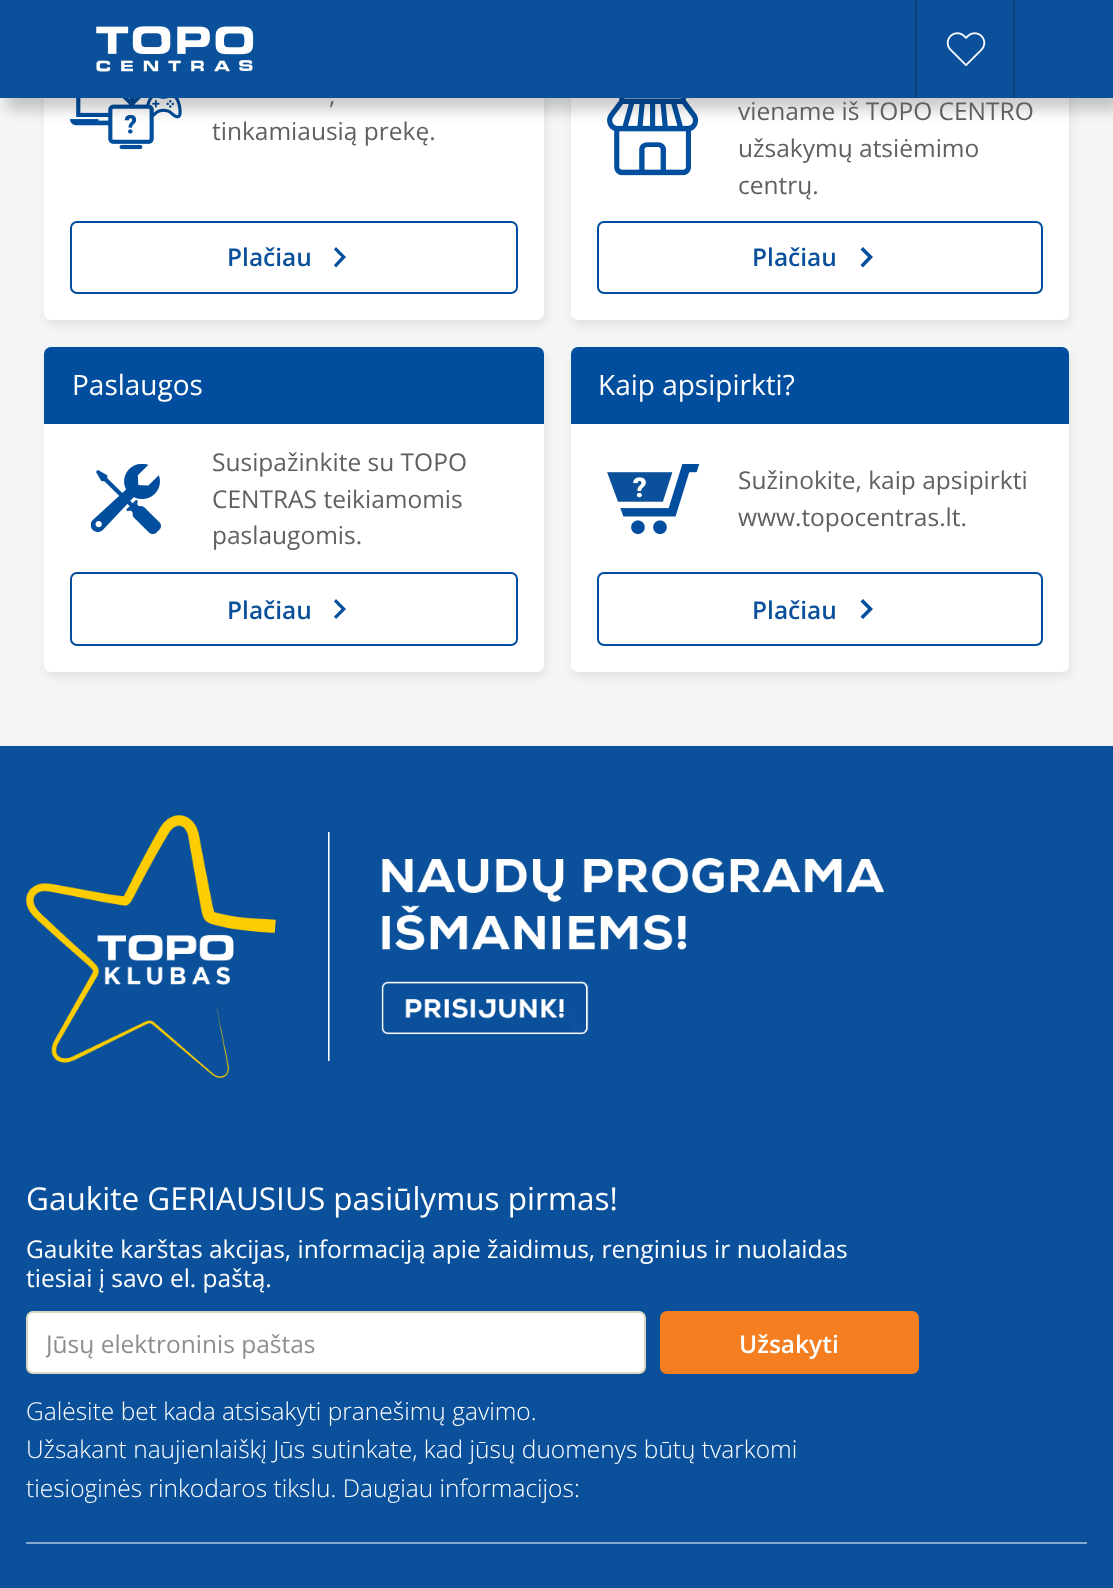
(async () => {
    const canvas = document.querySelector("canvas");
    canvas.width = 1113;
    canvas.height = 1588;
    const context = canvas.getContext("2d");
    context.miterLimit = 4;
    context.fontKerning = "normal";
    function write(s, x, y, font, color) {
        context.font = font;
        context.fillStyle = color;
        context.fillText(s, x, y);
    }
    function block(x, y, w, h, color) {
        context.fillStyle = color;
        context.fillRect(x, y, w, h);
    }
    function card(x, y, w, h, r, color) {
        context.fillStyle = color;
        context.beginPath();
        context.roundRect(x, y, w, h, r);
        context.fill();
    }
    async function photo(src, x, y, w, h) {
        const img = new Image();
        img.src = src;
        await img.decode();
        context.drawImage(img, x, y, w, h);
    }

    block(0, 0, 1113, 1588, "rgb(243, 245, 247)");
    context.fillStyle = "rgba(0, 0, 0, 0.07)";
    context.filter = "blur(4.5px)";
    context.beginPath();
    context.roundRect(46, -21, 500, 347, 7);
    context.fill();
    context.filter = "none";
    card(44, -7, 500, 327, 7, "rgb(255, 255, 255)");
    await photo("media/3.png", 70, 98, 112, 52);
    context.fillStyle = "rgba(0, 0, 0, 0.07)";
    context.filter = "blur(4.5px)";
    context.beginPath();
    context.roundRect(572, -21, 499, 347, 7);
    context.fill();
    context.filter = "none";
    card(571, -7, 498, 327, 7, "rgb(255, 255, 255)");
    await photo("media/4.png", 607, 98, 92, 78);
    context.fillStyle = "rgba(0, 0, 0, 0.2)";
    context.filter = "blur(7px)";
    context.beginPath();
    context.rect(7, 12, 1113, 98);
    context.fill();
    context.filter = "none";
    block(0, 0, 1113, 98, "rgb(10, 80, 155)");
    await photo("media/1.png", 96, 26, 158, 46);
    block(915, 0, 2, 98, "rgb(11, 63, 118)");
    await photo("media/2.png", 946, 32, 40, 34);
    block(1013, 0, 2, 98, "rgb(11, 63, 118)");
    write(",", 329, 104, "24.5px Open Sans", "rgb(96, 96, 96)");
    write("tinkamiausią prekę.", 212, 140, "24.5px Open Sans", "rgb(96, 96, 96)");
    context.beginPath();
    context.roundRect(71, 222, 446, 71, 6);
    context.strokeStyle = "rgb(0, 78, 157)";
    context.lineWidth = 2;
    context.stroke();
    write("Plačiau", 227, 266, "600 24.5px Open Sans", "rgb(10, 80, 155)");
    context.fillStyle = "rgb(0, 78, 157)";
    context.beginPath();
    context.moveTo(336, 247);
    context.lineTo(334, 249.5);
    context.lineTo(341.5, 257);
    context.lineTo(334, 265);
    context.lineTo(336, 267.5);
    context.lineTo(346, 257);
    context.closePath();
    context.fill();
    write("viename iš TOPO CENTRO", 738, 120, "24.5px Open Sans", "rgb(96, 96, 96)");
    write("užsakymų atsiėmimo", 738, 157, "24.5px Open Sans", "rgb(96, 96, 96)");
    write("centrų.", 738, 194, "24.5px Open Sans", "rgb(96, 96, 96)");
    context.beginPath();
    context.roundRect(598, 222, 444, 71, 6);
    context.stroke();
    write("Plačiau", 752, 266, "600 24.5px Open Sans", "rgb(10, 80, 155)");
    context.fillStyle = "rgb(0, 78, 157)";
    context.beginPath();
    context.moveTo(863, 247);
    context.lineTo(860.5, 249.5);
    context.lineTo(868, 257);
    context.lineTo(860.5, 265);
    context.lineTo(863, 267.5);
    context.lineTo(873, 257);
    context.closePath();
    context.fill();
    context.fillStyle = "rgba(0, 0, 0, 0.07)";
    context.filter = "blur(4.5px)";
    context.beginPath();
    context.roundRect(46, 352, 500, 325, 7);
    context.fill();
    context.filter = "none";
    card(44, 347, 500, 325, 7, "rgb(255, 255, 255)");
    context.fillStyle = "rgb(0, 78, 157)";
    context.beginPath();
    context.roundRect(44, 347, 500, 77, [7, 7, 0, 0]);
    context.fill();
    write("Paslaugos", 72, 395, "28px Open Sans", "rgb(255, 255, 255)");
    await photo("media/5.png", 91, 464, 70, 70);
    write("Susipažinkite su TOPO", 212, 471, "24.5px Open Sans", "rgb(96, 96, 96)");
    write("CENTRAS teikiamomis", 212, 508, "24.5px Open Sans", "rgb(96, 96, 96)");
    write("paslaugomis.", 212, 544, "24.5px Open Sans", "rgb(96, 96, 96)");
    context.beginPath();
    context.roundRect(71, 573, 446, 72, 6);
    context.stroke();
    write("Plačiau", 227, 619, "600 24.5px Open Sans", "rgb(10, 80, 155)");
    context.fillStyle = "rgb(0, 78, 157)";
    context.beginPath();
    context.moveTo(336, 599);
    context.lineTo(334, 601.5);
    context.lineTo(341.5, 609);
    context.lineTo(334, 616.5);
    context.lineTo(336, 619);
    context.lineTo(346, 609);
    context.closePath();
    context.fill();
    context.fillStyle = "rgba(0, 0, 0, 0.07)";
    context.filter = "blur(4.5px)";
    context.beginPath();
    context.roundRect(572, 352, 499, 325, 7);
    context.fill();
    context.filter = "none";
    card(571, 347, 498, 325, 7, "rgb(255, 255, 255)");
    context.fillStyle = "rgb(0, 78, 157)";
    context.beginPath();
    context.roundRect(571, 347, 498, 77, [7, 7, 0, 0]);
    context.fill();
    write("Kaip apsipirkti?", 598, 395, "28px Open Sans", "rgb(255, 255, 255)");
    await photo("media/6.png", 607, 464, 93, 70);
    write("Sužinokite, kaip apsipirkti", 738, 489, "24.5px Open Sans", "rgb(96, 96, 96)");
    write("www.topocentras.lt.", 738, 526, "24.5px Open Sans", "rgb(96, 96, 96)");
    context.beginPath();
    context.roundRect(598, 573, 444, 72, 6);
    context.stroke();
    write("Plačiau", 752, 619, "600 24.5px Open Sans", "rgb(10, 80, 155)");
    context.fillStyle = "rgb(0, 78, 157)";
    context.beginPath();
    context.moveTo(863, 599);
    context.lineTo(860.5, 601.5);
    context.lineTo(868, 609);
    context.lineTo(860.5, 616.5);
    context.lineTo(863, 619);
    context.lineTo(873, 609);
    context.closePath();
    context.fill();
    block(0, 746, 1113, 842, "rgb(10, 80, 155)");
    await photo("media/7.png", 26, 815, 858, 263);
    write("Gaukite GERIAUSIUS pasiūlymus pirmas!", 26, 1210, "31.5px Open Sans", "rgb(255, 255, 255)");
    write("Gaukite karštas akcijas, informaciją apie žaidimus, renginius ir nuolaidas", 26, 1258, "24.5px Open Sans", "rgb(255, 255, 255)");
    write("tiesiai į savo el. paštą.", 26, 1287, "24.5px Open Sans", "rgb(255, 255, 255)");
    context.beginPath();
    context.roundRect(27, 1312, 618, 61, 6);
    context.fill();
    context.strokeStyle = "rgb(217, 215, 193)";
    context.stroke();
    context.save();
    context.beginPath();
    context.rect(46, 1327, 581, 33);
    context.clip();
    write("Jūsų elektroninis paštas", 46, 1353, "24.5px Open Sans", "rgb(143, 142, 142)");
    context.restore();
    card(660, 1311, 259, 63, 7, "rgb(245, 126, 32)");
    write("Užsakyti", 739, 1353, "600 24.5px Open Sans", "rgb(255, 255, 255)");
    write("Galėsite bet kada atsisakyti pranešimų gavimo.", 26, 1420, "300 24.5px Open Sans", "rgb(255, 255, 255)");
    write("Užsakant naujienlaiškį Jūs sutinkate, kad jūsų duomenys būtų tvarkomi", 26, 1458, "300 24.5px Open Sans", "rgb(255, 255, 255)");
    write("tiesioginės rinkodaros tikslu. Daugiau informacijos:", 26, 1497, "300 24.5px Open Sans", "rgb(255, 255, 255)");
    block(26, 1542, 1061, 2, "rgb(133, 168, 205)");
})();
